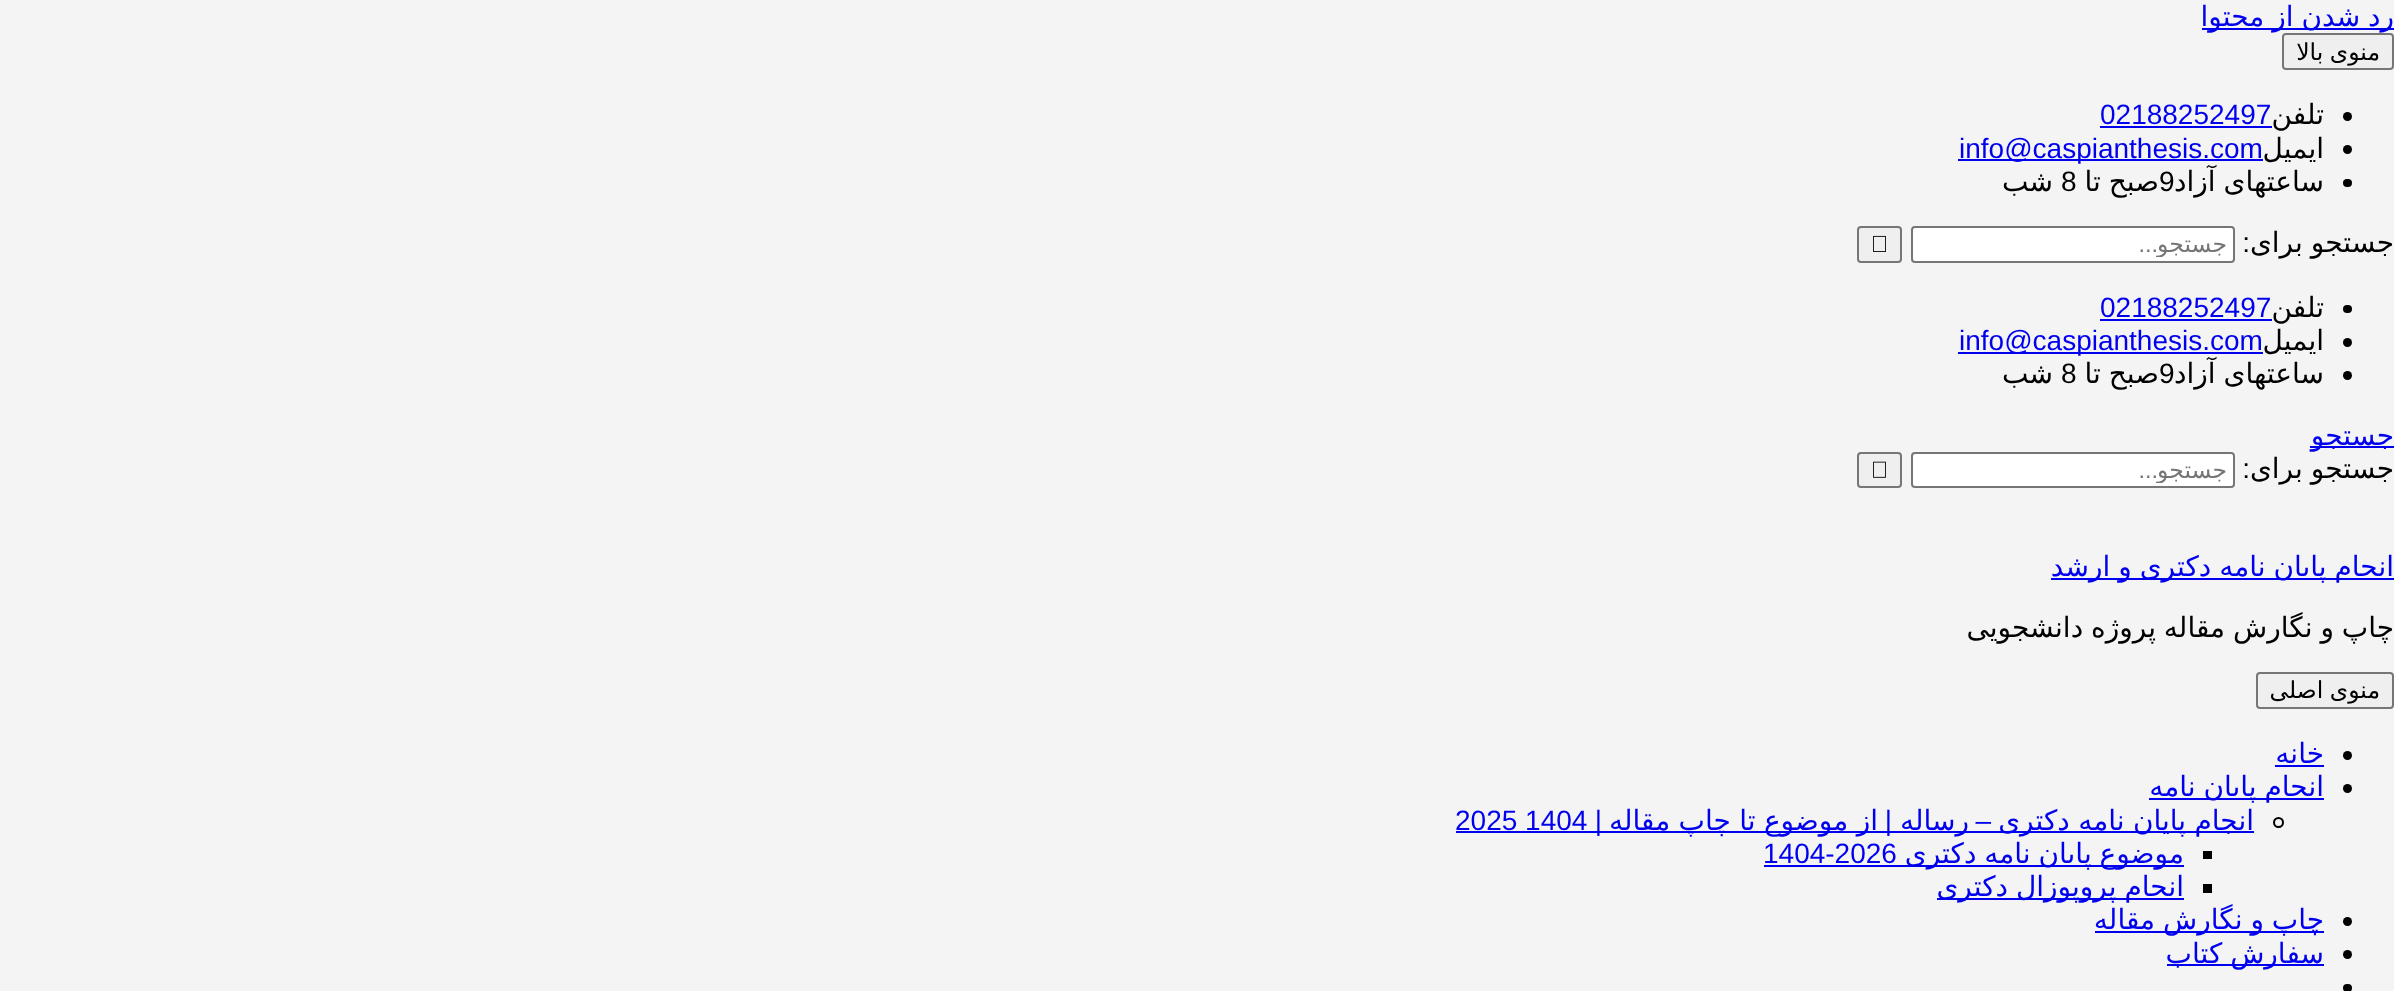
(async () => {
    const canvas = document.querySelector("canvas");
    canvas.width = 2394;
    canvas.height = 991;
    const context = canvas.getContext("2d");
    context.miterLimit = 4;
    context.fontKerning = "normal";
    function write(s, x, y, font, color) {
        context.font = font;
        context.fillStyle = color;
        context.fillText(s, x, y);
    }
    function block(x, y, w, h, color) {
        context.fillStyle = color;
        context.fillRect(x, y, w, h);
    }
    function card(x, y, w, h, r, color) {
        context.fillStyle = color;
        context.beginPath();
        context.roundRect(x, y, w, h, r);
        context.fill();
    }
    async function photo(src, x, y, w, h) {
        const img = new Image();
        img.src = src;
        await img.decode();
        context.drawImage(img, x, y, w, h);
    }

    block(0, 0, 2394, 991, "rgb(244, 244, 244)");
    block(2202, 28, 192, 2, "rgb(0, 0, 238)");
    context.wordSpacing = "-1px";
    context.direction = "rtl";
    write("رد شدن از محتوا", 2394, 26, "28px DejaVu Sans", "rgb(0, 0, 238)");
    context.fillStyle = "rgb(239, 239, 239)";
    context.beginPath();
    context.roundRect(2283, 34, 110, 35, 3);
    context.fill();
    context.strokeStyle = "rgb(118, 118, 118)";
    context.lineWidth = 2;
    context.stroke();
    write("منوی بالا", 2380, 60, "23.5px DejaVu Sans", "rgb(0, 0, 0)");
    context.beginPath();
    context.arc(2347.5, 116.5, 4.5, 0, Math.PI * 2);
    context.fill();
    context.wordSpacing = "0px";
    write("تلفن", 2324, 124, "28px DejaVu Sans", "rgb(0, 0, 0)");
    context.direction = "ltr";
    write("02188252497", 2100, 124, "28px Liberation Sans", "rgb(0, 0, 238)");
    block(2100, 126, 172, 2, "rgb(0, 0, 238)");
    context.fillStyle = "rgb(0, 0, 0)";
    context.beginPath();
    context.arc(2347.5, 149.5, 4.5, 0, Math.PI * 2);
    context.fill();
    context.direction = "rtl";
    write("ایمیل", 2324, 158, "28px DejaVu Sans", "rgb(0, 0, 0)");
    block(1958, 159, 305, 2, "rgb(0, 0, 238)");
    context.direction = "ltr";
    write("info@caspianthesis.com", 1959, 158, "28px Liberation Sans", "rgb(0, 0, 238)");
    card(2343, 179, 9, 8, 4, "rgb(0, 0, 0)");
    context.wordSpacing = "-1px";
    context.direction = "rtl";
    write("ساعتهای آزاد", 2324, 191, "28px DejaVu Sans", "rgb(0, 0, 0)");
    context.wordSpacing = "0px";
    context.direction = "ltr";
    write("9", 2159, 191, "28px Liberation Sans", "rgb(0, 0, 0)");
    context.wordSpacing = "-1px";
    context.direction = "rtl";
    write("صبح تا", 2159, 191, "28px DejaVu Sans", "rgb(0, 0, 0)");
    context.wordSpacing = "0px";
    context.direction = "ltr";
    write("8", 2061, 191, "28px Liberation Sans", "rgb(0, 0, 0)");
    context.direction = "rtl";
    write("شب", 2053, 191, "28px DejaVu Sans", "rgb(0, 0, 0)");
    context.wordSpacing = "-1px";
    write("جستجو برای", 2394, 252, "28px DejaVu Sans", "rgb(0, 0, 0)");
    context.wordSpacing = "0px";
    write(":", 2250, 252, "28px Liberation Sans", "rgb(0, 0, 0)");
    context.fillStyle = "rgb(255, 255, 255)";
    context.beginPath();
    context.roundRect(1912, 227, 322, 35, 3);
    context.fill();
    context.stroke();
    context.save();
    context.beginPath();
    context.rect(1941, 231, 287, 26);
    context.clip();
    write("جستجو", 2227, 252, "23.5px DejaVu Sans", "rgb(117, 117, 117)");
    context.restore();
    write("...", 2158, 252, "23.5px Liberation Sans", "rgb(117, 117, 117)");
    context.fillStyle = "rgb(239, 239, 239)";
    context.beginPath();
    context.roundRect(1858, 227, 43, 35, 3);
    context.fill();
    context.stroke();
    await photo("media/1.png", 1873, 235, 13, 17);
    card(2343, 305, 9, 8, 4, "rgb(0, 0, 0)");
    write("تلفن", 2324, 317, "28px DejaVu Sans", "rgb(0, 0, 0)");
    context.direction = "ltr";
    write("02188252497", 2100, 317, "28px Liberation Sans", "rgb(0, 0, 238)");
    block(2100, 319, 172, 2, "rgb(0, 0, 238)");
    context.fillStyle = "rgb(0, 0, 0)";
    context.beginPath();
    context.arc(2347.5, 342.5, 4.5, 0, Math.PI * 2);
    context.fill();
    context.direction = "rtl";
    write("ایمیل", 2324, 350, "28px DejaVu Sans", "rgb(0, 0, 0)");
    block(1958, 352, 305, 2, "rgb(0, 0, 238)");
    context.direction = "ltr";
    write("info@caspianthesis.com", 1959, 350, "28px Liberation Sans", "rgb(0, 0, 238)");
    context.fillStyle = "rgb(0, 0, 0)";
    context.beginPath();
    context.arc(2347.5, 375.5, 4.5, 0, Math.PI * 2);
    context.fill();
    context.wordSpacing = "-1px";
    context.direction = "rtl";
    write("ساعتهای آزاد", 2324, 383, "28px DejaVu Sans", "rgb(0, 0, 0)");
    context.wordSpacing = "0px";
    context.direction = "ltr";
    write("9", 2159, 383, "28px Liberation Sans", "rgb(0, 0, 0)");
    context.wordSpacing = "-1px";
    context.direction = "rtl";
    write("صبح تا", 2159, 383, "28px DejaVu Sans", "rgb(0, 0, 0)");
    context.wordSpacing = "0px";
    context.direction = "ltr";
    write("8", 2061, 383, "28px Liberation Sans", "rgb(0, 0, 0)");
    context.direction = "rtl";
    write("شب", 2053, 383, "28px DejaVu Sans", "rgb(0, 0, 0)");
    block(2310, 446, 84, 2, "rgb(0, 0, 238)");
    write("جستجو", 2394, 445, "28px DejaVu Sans", "rgb(0, 0, 238)");
    context.wordSpacing = "-1px";
    write("جستجو برای", 2394, 478, "28px DejaVu Sans", "rgb(0, 0, 0)");
    context.wordSpacing = "0px";
    write(":", 2250, 478, "28px Liberation Sans", "rgb(0, 0, 0)");
    context.fillStyle = "rgb(255, 255, 255)";
    context.beginPath();
    context.roundRect(1912, 453, 322, 34, 3);
    context.fill();
    context.stroke();
    context.save();
    context.beginPath();
    context.rect(1941, 457, 287, 26);
    context.clip();
    write("جستجو", 2227, 478, "23.5px DejaVu Sans", "rgb(117, 117, 117)");
    context.restore();
    write("...", 2158, 478, "23.5px Liberation Sans", "rgb(117, 117, 117)");
    context.fillStyle = "rgb(239, 239, 239)";
    context.beginPath();
    context.roundRect(1858, 453, 43, 34, 3);
    context.fill();
    context.stroke();
    await photo("media/2.png", 1873, 461, 13, 17);
    block(2051, 578, 343, 2, "rgb(0, 0, 238)");
    context.wordSpacing = "-1px";
    write("انجام پایان نامه دکتری و ارشد", 2394, 576, "28px DejaVu Sans", "rgb(0, 0, 238)");
    write("چاپ و نگارش مقاله پروژه دانشجویی", 2394, 637, "28px DejaVu Sans", "rgb(0, 0, 0)");
    context.fillStyle = "rgb(239, 239, 239)";
    context.beginPath();
    context.roundRect(2257, 673, 136, 35, 3);
    context.fill();
    context.stroke();
    write("منوی اصلی", 2380, 698, "23.5px DejaVu Sans", "rgb(0, 0, 0)");
    context.beginPath();
    context.arc(2347.5, 755.5, 4.5, 0, Math.PI * 2);
    context.fill();
    context.wordSpacing = "0px";
    write("خانه", 2324, 763, "28px DejaVu Sans", "rgb(0, 0, 238)");
    block(2275, 765, 49, 2, "rgb(0, 0, 238)");
    context.fillStyle = "rgb(0, 0, 0)";
    context.beginPath();
    context.arc(2347.5, 788.5, 4.5, 0, Math.PI * 2);
    context.fill();
    block(2149, 798, 175, 2, "rgb(0, 0, 238)");
    context.wordSpacing = "-1px";
    write("انجام پایان نامه", 2324, 796, "28px DejaVu Sans", "rgb(0, 0, 238)");
    context.beginPath();
    context.arc(2278.5, 822.5, 4.5, 0, Math.PI * 2);
    context.strokeStyle = "rgb(0, 0, 0)";
    context.stroke();
    block(1456, 831, 798, 2, "rgb(0, 0, 238)");
    context.wordSpacing = "-0.5px";
    write("انجام پایان نامه دکتری", 2254, 830, "28px DejaVu Sans", "rgb(0, 0, 238)");
    context.wordSpacing = "0px";
    write("–", 1991, 830, "28px Liberation Sans", "rgb(0, 0, 238)");
    write("رساله", 1969, 830, "28px DejaVu Sans", "rgb(0, 0, 238)");
    write("|", 1892, 830, "28px Liberation Sans", "rgb(0, 0, 238)");
    context.wordSpacing = "-0.5px";
    write("از موضوع تا چاپ مقاله", 1878, 830, "28px DejaVu Sans", "rgb(0, 0, 238)");
    context.wordSpacing = "0px";
    write("|", 1602, 830, "28px Liberation Sans", "rgb(0, 0, 238)");
    context.direction = "ltr";
    write("2025 1404", 1455, 830, "28px Liberation Sans", "rgb(0, 0, 238)");
    block(2203, 851, 9, 8, "rgb(0, 0, 0)");
    block(1764, 865, 420, 2, "rgb(0, 0, 238)");
    context.wordSpacing = "-1px";
    context.direction = "rtl";
    write("موضوع پایان نامه دکتری", 2184, 863, "28px DejaVu Sans", "rgb(0, 0, 238)");
    context.wordSpacing = "0px";
    context.direction = "ltr";
    write("1404-2026", 1763, 863, "28px Liberation Sans", "rgb(0, 0, 238)");
    block(2203, 884, 9, 9, "rgb(0, 0, 0)");
    block(1937, 898, 247, 2, "rgb(0, 0, 238)");
    context.wordSpacing = "-1px";
    context.direction = "rtl";
    write("انجام پروپوزال دکتری", 2184, 896, "28px DejaVu Sans", "rgb(0, 0, 238)");
    context.fillStyle = "rgb(0, 0, 0)";
    context.beginPath();
    context.arc(2347.5, 921.5, 4.5, 0, Math.PI * 2);
    context.fill();
    block(2095, 931, 229, 2, "rgb(0, 0, 238)");
    write("چاپ و نگارش مقاله", 2324, 929, "28px DejaVu Sans", "rgb(0, 0, 238)");
    context.fillStyle = "rgb(0, 0, 0)";
    context.beginPath();
    context.arc(2347.5, 954.5, 4.5, 0, Math.PI * 2);
    context.fill();
    block(2167, 964, 157, 2, "rgb(0, 0, 238)");
    write("سفارش کتاب", 2324, 963, "28px DejaVu Sans", "rgb(0, 0, 238)");
    card(2343, 984, 9, 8, 4, "rgb(0, 0, 0)");
})();
